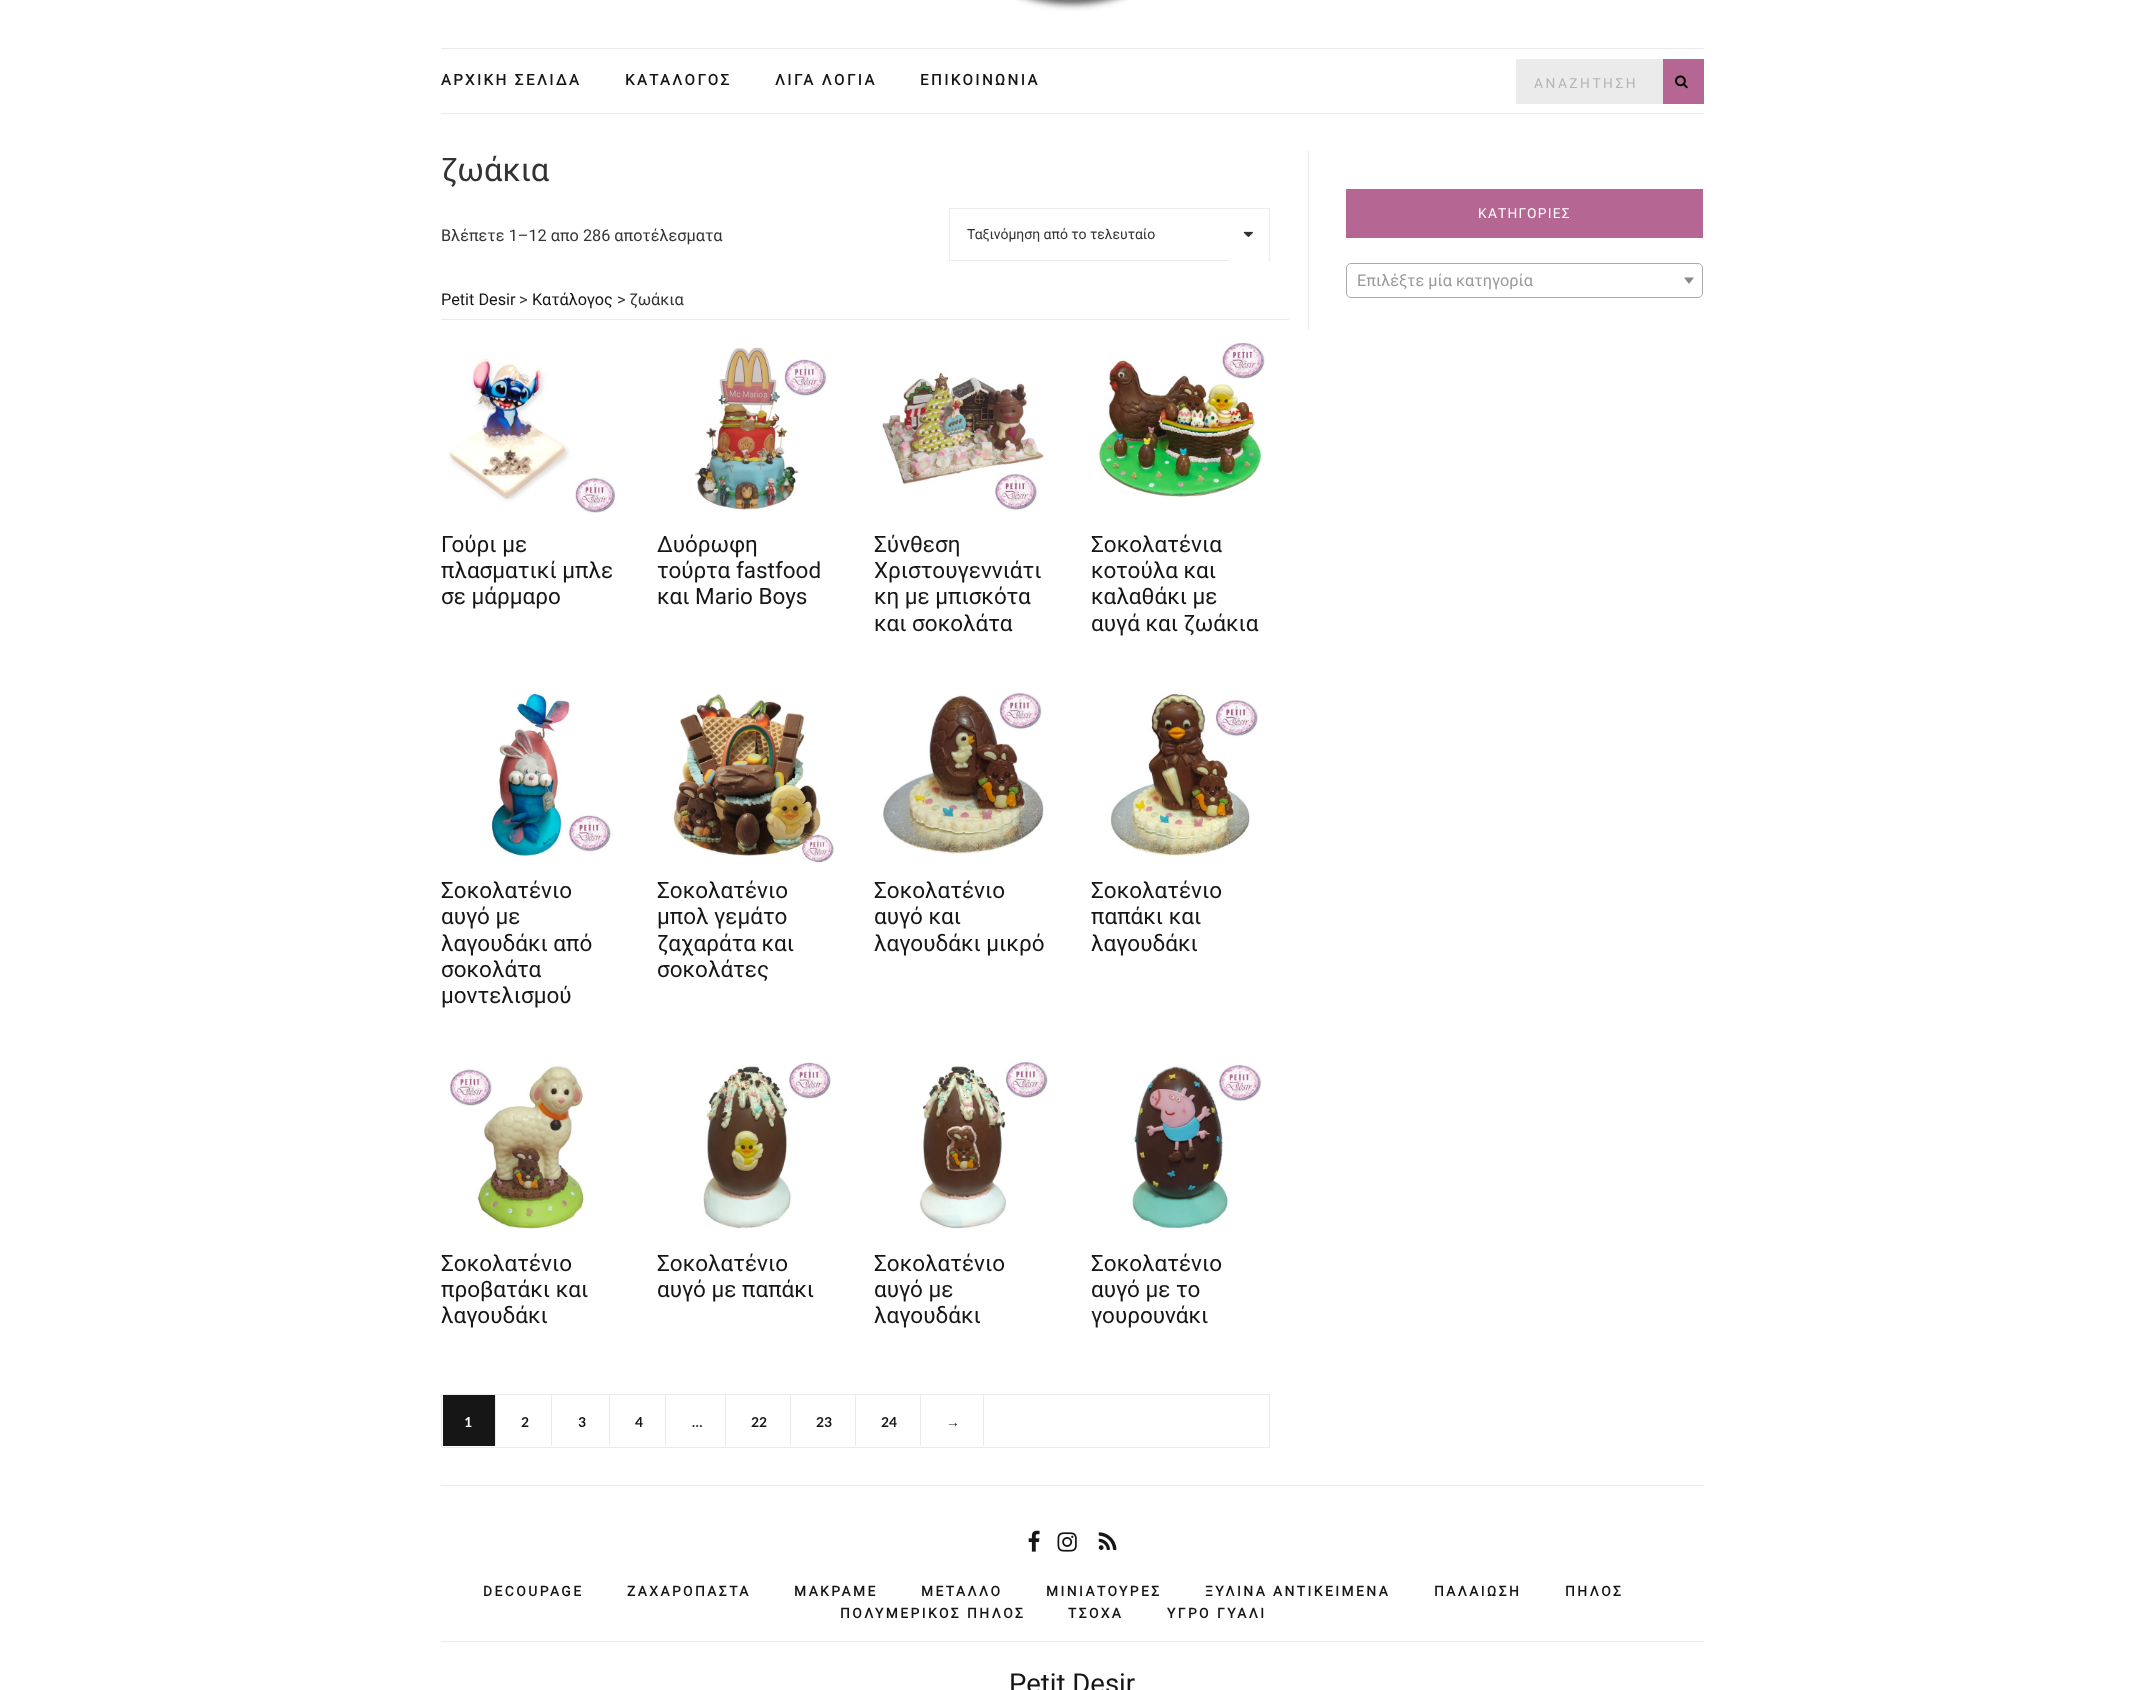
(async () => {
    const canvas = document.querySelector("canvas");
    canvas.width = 2143;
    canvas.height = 1690;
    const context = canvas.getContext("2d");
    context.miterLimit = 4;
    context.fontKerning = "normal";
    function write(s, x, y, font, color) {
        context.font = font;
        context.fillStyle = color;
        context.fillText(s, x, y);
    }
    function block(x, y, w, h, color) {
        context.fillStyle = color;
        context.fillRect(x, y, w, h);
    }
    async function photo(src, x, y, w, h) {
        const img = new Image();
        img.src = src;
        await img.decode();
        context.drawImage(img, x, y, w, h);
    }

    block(0, 0, 2143, 1690, "rgb(255, 255, 255)");
    await photo("media/1.png", 1015, 0, 114, 11);
    block(441, 48, 1263, 1, "rgb(235, 235, 235)");
    block(441, 113, 1263, 1, "rgb(235, 235, 235)");
    context.letterSpacing = "2.5px";
    write("ΑΡΧΙΚΗ ΣΕΛΙΔΑ", 441, 85, "bold 15px Roboto", "rgb(22, 22, 22)");
    write("ΚΑΤΑΛΟΓΟΣ", 625, 85, "bold 15px Roboto", "rgb(22, 22, 22)");
    write("ΛΙΓΑ ΛΟΓΙΑ", 775, 85, "bold 15px Roboto", "rgb(22, 22, 22)");
    write("ΕΠΙΚΟΙΝΩΝΙΑ", 920, 85, "bold 15px Roboto", "rgb(22, 22, 22)");
    block(1516, 59, 147, 45, "rgb(235, 235, 235)");
    write("ΑΝΑΖΗΤΗΣΗ", 1534, 88, "13.75px Roboto", "rgb(180, 180, 180)");
    block(1663, 59, 41, 45, "rgb(181, 102, 146)");
    await photo("media/2.png", 1675, 75, 13, 14);
    context.letterSpacing = "0px";
    write("ζωάκια", 441, 181, "32.5px Roboto", "rgb(51, 51, 51)");
    write("Βλέπετε 1–12 απο 286 αποτέλεσματα", 441, 241, "16.25px Roboto", "rgb(51, 51, 51)");
    context.strokeStyle = "rgb(236, 236, 236)";
    context.strokeRect(949.5, 208.5, 320, 52);
    write("Ταξινόμηση από το τελευταίο", 967, 239, "14px Roboto", "rgb(51, 51, 51)");
    block(1230, 260, 38, 1, "rgb(255, 255, 255)");
    await photo("media/3.png", 1243, 231, 10, 6);
    block(441, 319, 848, 1, "rgb(235, 235, 235)");
    write("Petit Desir", 441, 305, "16.25px Roboto", "rgb(22, 22, 22)");
    write(">", 519, 305, "16.25px Roboto", "rgb(51, 51, 51)");
    write("Κατάλογος", 532, 305, "16.25px Roboto", "rgb(22, 22, 22)");
    write("> ζωάκια", 617, 305, "16.25px Roboto", "rgb(51, 51, 51)");
    await photo("media/4.png", 447, 358, 170, 155);
    write("Γούρι με", 441, 552, "22.5px Roboto", "rgb(22, 22, 22)");
    write("πλασματικί μπλε", 441, 578, "22.5px Roboto", "rgb(22, 22, 22)");
    write("σε μάρμαρο", 441, 604, "22.5px Roboto", "rgb(22, 22, 22)");
    await photo("media/5.png", 694, 347, 134, 164);
    write("Δυόρωφη", 657, 552, "22.5px Roboto", "rgb(22, 22, 22)");
    write("τούρτα fastfood", 657, 578, "22.5px Roboto", "rgb(22, 22, 22)");
    write("και Mario Boys", 657, 604, "22.5px Roboto", "rgb(22, 22, 22)");
    await photo("media/6.png", 882, 372, 162, 139);
    write("Σύνθεση", 874, 552, "22.5px Roboto", "rgb(22, 22, 22)");
    write("Χριστουγεννιάτι", 874, 578, "22.5px Roboto", "rgb(22, 22, 22)");
    write("κη με μπισκότα", 874, 604, "22.5px Roboto", "rgb(22, 22, 22)");
    write("και σοκολάτα", 874, 631, "22.5px Roboto", "rgb(22, 22, 22)");
    await photo("media/7.png", 1097, 341, 168, 157);
    write("Σοκολατένια", 1091, 552, "22.5px Roboto", "rgb(22, 22, 22)");
    write("κοτούλα και", 1091, 578, "22.5px Roboto", "rgb(22, 22, 22)");
    write("καλαθάκι με", 1091, 604, "22.5px Roboto", "rgb(22, 22, 22)");
    write("αυγά και ζωάκια", 1091, 631, "22.5px Roboto", "rgb(22, 22, 22)");
    await photo("media/8.png", 487, 690, 126, 168);
    write("Σοκολατένιο", 441, 898, "22.5px Roboto", "rgb(22, 22, 22)");
    write("αυγό με", 441, 924, "22.5px Roboto", "rgb(22, 22, 22)");
    write("λαγουδάκι από", 441, 951, "22.5px Roboto", "rgb(22, 22, 22)");
    write("σοκολάτα", 441, 977, "22.5px Roboto", "rgb(22, 22, 22)");
    write("μοντελισμού", 441, 1003, "22.5px Roboto", "rgb(22, 22, 22)");
    await photo("media/9.png", 672, 693, 163, 170);
    write("Σοκολατένιο", 657, 898, "22.5px Roboto", "rgb(22, 22, 22)");
    write("μπολ γεμάτο", 657, 924, "22.5px Roboto", "rgb(22, 22, 22)");
    write("ζαχαράτα και", 657, 951, "22.5px Roboto", "rgb(22, 22, 22)");
    write("σοκολάτες", 657, 977, "22.5px Roboto", "rgb(22, 22, 22)");
    await photo("media/10.png", 883, 691, 161, 163);
    write("Σοκολατένιο", 874, 898, "22.5px Roboto", "rgb(22, 22, 22)");
    write("αυγό και", 874, 924, "22.5px Roboto", "rgb(22, 22, 22)");
    write("λαγουδάκι μικρό", 874, 951, "22.5px Roboto", "rgb(22, 22, 22)");
    await photo("media/11.png", 1110, 693, 148, 164);
    write("Σοκολατένιο", 1091, 898, "22.5px Roboto", "rgb(22, 22, 22)");
    write("παπάκι και", 1091, 924, "22.5px Roboto", "rgb(22, 22, 22)");
    write("λαγουδάκι", 1091, 951, "22.5px Roboto", "rgb(22, 22, 22)");
    await photo("media/12.png", 448, 1066, 136, 164);
    write("Σοκολατένιο", 441, 1271, "22.5px Roboto", "rgb(22, 22, 22)");
    write("προβατάκι και", 441, 1297, "22.5px Roboto", "rgb(22, 22, 22)");
    write("λαγουδάκι", 441, 1323, "22.5px Roboto", "rgb(22, 22, 22)");
    await photo("media/13.png", 703, 1062, 129, 167);
    write("Σοκολατένιο", 657, 1271, "22.5px Roboto", "rgb(22, 22, 22)");
    write("αυγό με παπάκι", 657, 1297, "22.5px Roboto", "rgb(22, 22, 22)");
    await photo("media/14.png", 919, 1060, 129, 169);
    write("Σοκολατένιο", 874, 1271, "22.5px Roboto", "rgb(22, 22, 22)");
    write("αυγό με", 874, 1297, "22.5px Roboto", "rgb(22, 22, 22)");
    write("λαγουδάκι", 874, 1323, "22.5px Roboto", "rgb(22, 22, 22)");
    await photo("media/15.png", 1132, 1063, 130, 167);
    write("Σοκολατένιο", 1091, 1271, "22.5px Roboto", "rgb(22, 22, 22)");
    write("αυγό με το", 1091, 1297, "22.5px Roboto", "rgb(22, 22, 22)");
    write("γουρουνάκι", 1091, 1323, "22.5px Roboto", "rgb(22, 22, 22)");
    context.strokeStyle = "rgb(235, 235, 235)";
    context.strokeRect(441.5, 1394.5, 828, 53);
    block(443, 1395, 52, 51, "rgb(22, 22, 22)");
    block(495, 1395, 1, 51, "rgb(235, 235, 235)");
    write("1", 464, 1427, "bold 13.75px Lato", "rgb(255, 255, 255)");
    block(551, 1395, 1, 51, "rgb(235, 235, 235)");
    write("2", 521, 1427, "bold 13.75px Lato", "rgb(22, 22, 22)");
    block(609, 1395, 1, 51, "rgb(235, 235, 235)");
    write("3", 578, 1427, "bold 13.75px Lato", "rgb(22, 22, 22)");
    block(665, 1395, 1, 51, "rgb(235, 235, 235)");
    write("4", 635, 1427, "bold 13.75px Lato", "rgb(22, 22, 22)");
    block(725, 1395, 1, 51, "rgb(235, 235, 235)");
    write("…", 692, 1427, "bold 13.75px Lato", "rgb(51, 51, 51)");
    block(790, 1395, 1, 51, "rgb(235, 235, 235)");
    write("22", 751, 1427, "bold 13.75px Lato", "rgb(22, 22, 22)");
    block(855, 1395, 1, 51, "rgb(235, 235, 235)");
    write("23", 816, 1427, "bold 13.75px Lato", "rgb(22, 22, 22)");
    block(920, 1395, 1, 51, "rgb(235, 235, 235)");
    write("24", 881, 1427, "bold 13.75px Lato", "rgb(22, 22, 22)");
    block(983, 1395, 1, 51, "rgb(235, 235, 235)");
    write("→", 946, 1427, "bold 13.75px Liberation Sans", "rgb(22, 22, 22)");
    block(1308, 151, 1, 179, "rgb(235, 235, 235)");
    block(1346, 189, 357, 49, "rgb(181, 102, 146)");
    context.letterSpacing = "1.25px";
    write("ΚΑΤΗΓΟΡΙΕΣ", 1478, 218, "13.75px Roboto", "rgb(255, 255, 255)");
    context.beginPath();
    context.roundRect(1346.5, 263.5, 356, 34, 4.5);
    context.strokeStyle = "rgb(170, 170, 170)";
    context.stroke();
    context.letterSpacing = "0px";
    write("Επιλέξτε μία κατηγορία", 1357, 286, "16.25px Roboto", "rgb(153, 153, 153)");
    context.fillStyle = "rgb(136, 136, 136)";
    context.beginPath();
    context.moveTo(1684, 277.5);
    context.lineTo(1694, 277.5);
    context.lineTo(1689, 284);
    context.closePath();
    context.fill();
    block(441, 1485, 1263, 1, "rgb(235, 235, 235)");
    await photo("media/16.png", 1028, 1530, 12, 22);
    await photo("media/17.png", 1057, 1532, 20, 20);
    await photo("media/18.png", 1098, 1532, 19, 18);
    block(441, 1641, 1263, 1, "rgb(235, 235, 235)");
    context.letterSpacing = "2.5px";
    write("DECOUPAGE", 483, 1596, "bold 13.75px Roboto", "rgb(22, 22, 22)");
    write("ΖΑΧΑΡΟΠΑΣΤΑ", 627, 1596, "bold 13.75px Roboto", "rgb(22, 22, 22)");
    write("ΜΑΚΡΑΜΕ", 794, 1596, "bold 13.75px Roboto", "rgb(22, 22, 22)");
    write("ΜΕΤΑΛΛΟ", 921, 1596, "bold 13.75px Roboto", "rgb(22, 22, 22)");
    write("ΜΙΝΙΑΤΟΥΡΕΣ", 1046, 1596, "bold 13.75px Roboto", "rgb(22, 22, 22)");
    write("ΞΥΛΙΝΑ ΑΝΤΙΚΕΙΜΕΝΑ", 1205, 1596, "bold 13.75px Roboto", "rgb(22, 22, 22)");
    write("ΠΑΛΑΙΩΣΗ", 1434, 1596, "bold 13.75px Roboto", "rgb(22, 22, 22)");
    write("ΠΗΛΟΣ", 1565, 1596, "bold 13.75px Roboto", "rgb(22, 22, 22)");
    write("ΠΟΛΥΜΕΡΙΚΟΣ ΠΗΛΟΣ", 840, 1618, "bold 13.75px Roboto", "rgb(22, 22, 22)");
    write("ΤΣΟΧΑ", 1068, 1618, "bold 13.75px Roboto", "rgb(22, 22, 22)");
    write("ΥΓΡΟ ΓΥΑΛΙ", 1167, 1618, "bold 13.75px Roboto", "rgb(22, 22, 22)");
    context.letterSpacing = "0px";
    write("Petit Desir", 1009, 1693, "27.5px Roboto", "rgb(22, 22, 22)");
})();
